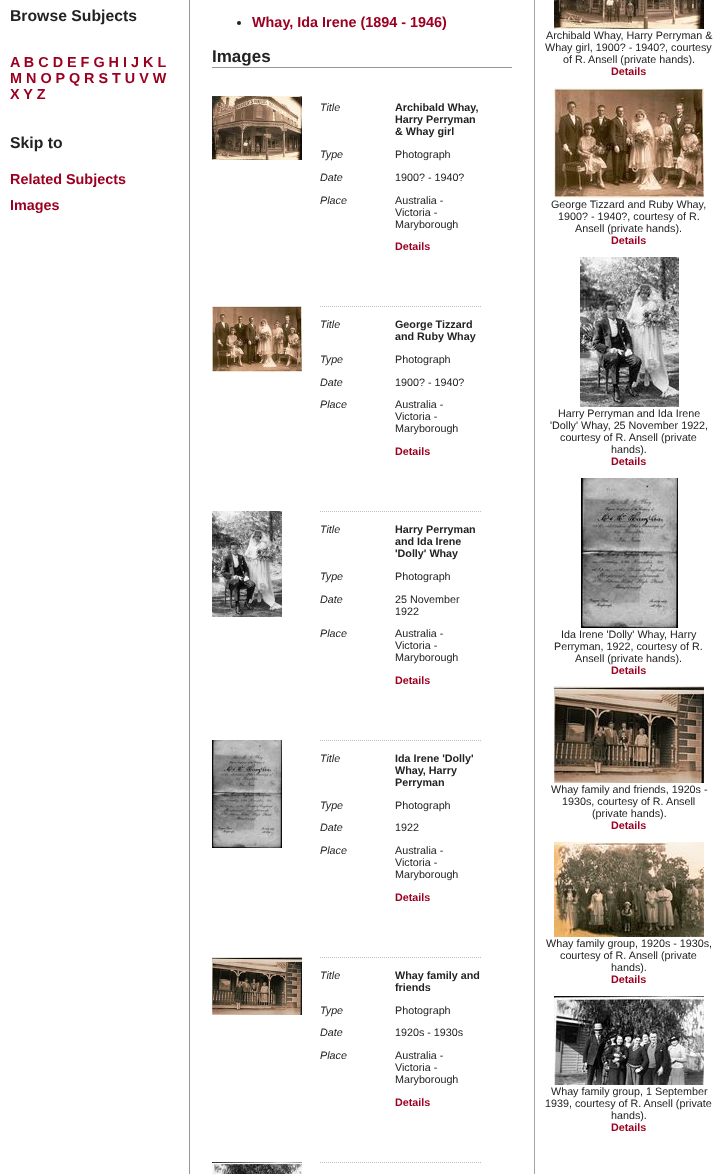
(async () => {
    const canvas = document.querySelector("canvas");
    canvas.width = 724;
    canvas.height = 1174;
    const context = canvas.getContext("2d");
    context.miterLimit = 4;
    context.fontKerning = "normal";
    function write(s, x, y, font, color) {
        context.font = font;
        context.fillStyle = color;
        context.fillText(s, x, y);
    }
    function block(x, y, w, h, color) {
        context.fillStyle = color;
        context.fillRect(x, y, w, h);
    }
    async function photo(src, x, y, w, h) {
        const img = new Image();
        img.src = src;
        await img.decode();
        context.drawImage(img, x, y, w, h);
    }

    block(0, 0, 724, 1174, "rgb(255, 255, 255)");
    block(189, 0, 1, 1174, "rgb(150, 150, 150)");
    block(534, 0, 1, 1174, "rgb(165, 164, 164)");
    write("Browse Subjects", 10, 21, "bold 15.75px Liberation Sans", "rgb(34, 34, 34)");
    write("A B C D E F G H I J K L", 10, 67, "bold 14.4px Liberation Sans", "rgb(156, 0, 33)");
    write("M N O P Q R S T U V W", 10, 83, "bold 14.4px Liberation Sans", "rgb(156, 0, 33)");
    write("X Y Z", 10, 99, "bold 14.4px Liberation Sans", "rgb(156, 0, 33)");
    write("Skip to", 10, 148, "bold 15.75px Liberation Sans", "rgb(34, 34, 34)");
    write("Related Subjects", 10, 184, "bold 14.4px Liberation Sans", "rgb(156, 0, 33)");
    write("Images", 10, 210, "bold 14.4px Liberation Sans", "rgb(156, 0, 33)");
    context.fillStyle = "rgb(34, 34, 34)";
    context.beginPath();
    context.arc(239, 23, 2, 0, Math.PI * 2);
    context.fill();
    write("Whay, Ida Irene (1894 - 1946)", 252, 27, "bold 14.4px Liberation Sans", "rgb(156, 0, 33)");
    block(212, 67, 300, 1, "rgb(150, 150, 150)");
    write("Images", 212, 62, "bold 17px Liberation Sans", "rgb(34, 34, 34)");
    await photo("media/1.png", 212, 96, 90, 64);
    write("Title", 320, 111, "italic 10.75px Liberation Sans", "rgb(34, 34, 34)");
    write("Archibald Whay,", 395, 111, "bold 10.75px Liberation Sans", "rgb(34, 34, 34)");
    write("Harry Perryman", 395, 123, "bold 10.75px Liberation Sans", "rgb(34, 34, 34)");
    write("& Whay girl", 395, 135, "bold 10.75px Liberation Sans", "rgb(34, 34, 34)");
    write("Type", 320, 158, "italic 10.75px Liberation Sans", "rgb(34, 34, 34)");
    write("Photograph", 395, 158, "10.75px Liberation Sans", "rgb(34, 34, 34)");
    write("Date", 320, 181, "italic 10.75px Liberation Sans", "rgb(34, 34, 34)");
    write("1900? - 1940?", 395, 181, "10.75px Liberation Sans", "rgb(34, 34, 34)");
    write("Place", 320, 204, "italic 10.75px Liberation Sans", "rgb(34, 34, 34)");
    write("Australia -", 395, 204, "10.75px Liberation Sans", "rgb(34, 34, 34)");
    write("Victoria -", 395, 216, "10.75px Liberation Sans", "rgb(34, 34, 34)");
    write("Maryborough", 395, 228, "10.75px Liberation Sans", "rgb(34, 34, 34)");
    write("Details", 395, 250, "bold 10.75px Liberation Sans", "rgb(156, 0, 33)");
    await photo("media/2.png", 212, 306, 90, 66);
    context.beginPath();
    context.moveTo(320, 306.5);
    context.lineTo(482, 306.5);
    context.strokeStyle = "rgb(192, 192, 192)";
    context.setLineDash([1, 1]);
    context.stroke();
    write("Title", 320, 328, "italic 10.75px Liberation Sans", "rgb(34, 34, 34)");
    write("George Tizzard", 395, 328, "bold 10.75px Liberation Sans", "rgb(34, 34, 34)");
    write("and Ruby Whay", 395, 340, "bold 10.75px Liberation Sans", "rgb(34, 34, 34)");
    write("Type", 320, 363, "italic 10.75px Liberation Sans", "rgb(34, 34, 34)");
    write("Photograph", 395, 363, "10.75px Liberation Sans", "rgb(34, 34, 34)");
    write("Date", 320, 386, "italic 10.75px Liberation Sans", "rgb(34, 34, 34)");
    write("1900? - 1940?", 395, 386, "10.75px Liberation Sans", "rgb(34, 34, 34)");
    write("Place", 320, 408, "italic 10.75px Liberation Sans", "rgb(34, 34, 34)");
    write("Australia -", 395, 408, "10.75px Liberation Sans", "rgb(34, 34, 34)");
    write("Victoria -", 395, 420, "10.75px Liberation Sans", "rgb(34, 34, 34)");
    write("Maryborough", 395, 432, "10.75px Liberation Sans", "rgb(34, 34, 34)");
    write("Details", 395, 455, "bold 10.75px Liberation Sans", "rgb(156, 0, 33)");
    await photo("media/3.png", 212, 511, 70, 106);
    context.beginPath();
    context.moveTo(320, 511.5);
    context.lineTo(482, 511.5);
    context.stroke();
    write("Title", 320, 533, "italic 10.75px Liberation Sans", "rgb(34, 34, 34)");
    write("Harry Perryman", 395, 533, "bold 10.75px Liberation Sans", "rgb(34, 34, 34)");
    write("and Ida Irene", 395, 545, "bold 10.75px Liberation Sans", "rgb(34, 34, 34)");
    write("'Dolly' Whay", 395, 557, "bold 10.75px Liberation Sans", "rgb(34, 34, 34)");
    write("Type", 320, 580, "italic 10.75px Liberation Sans", "rgb(34, 34, 34)");
    write("Photograph", 395, 580, "10.75px Liberation Sans", "rgb(34, 34, 34)");
    write("Date", 320, 603, "italic 10.75px Liberation Sans", "rgb(34, 34, 34)");
    write("25 November", 395, 603, "10.75px Liberation Sans", "rgb(34, 34, 34)");
    write("1922", 395, 615, "10.75px Liberation Sans", "rgb(34, 34, 34)");
    write("Place", 320, 637, "italic 10.75px Liberation Sans", "rgb(34, 34, 34)");
    write("Australia -", 395, 637, "10.75px Liberation Sans", "rgb(34, 34, 34)");
    write("Victoria -", 395, 649, "10.75px Liberation Sans", "rgb(34, 34, 34)");
    write("Maryborough", 395, 661, "10.75px Liberation Sans", "rgb(34, 34, 34)");
    write("Details", 395, 684, "bold 10.75px Liberation Sans", "rgb(156, 0, 33)");
    await photo("media/4.png", 212, 740, 70, 108);
    context.beginPath();
    context.moveTo(320, 740.5);
    context.lineTo(482, 740.5);
    context.stroke();
    write("Title", 320, 762, "italic 10.75px Liberation Sans", "rgb(34, 34, 34)");
    write("Ida Irene 'Dolly'", 395, 762, "bold 10.75px Liberation Sans", "rgb(34, 34, 34)");
    write("Whay, Harry", 395, 774, "bold 10.75px Liberation Sans", "rgb(34, 34, 34)");
    write("Perryman", 395, 786, "bold 10.75px Liberation Sans", "rgb(34, 34, 34)");
    write("Type", 320, 809, "italic 10.75px Liberation Sans", "rgb(34, 34, 34)");
    write("Photograph", 395, 809, "10.75px Liberation Sans", "rgb(34, 34, 34)");
    write("Date", 320, 831, "italic 10.75px Liberation Sans", "rgb(34, 34, 34)");
    write("1922", 395, 831, "10.75px Liberation Sans", "rgb(34, 34, 34)");
    write("Place", 320, 854, "italic 10.75px Liberation Sans", "rgb(34, 34, 34)");
    write("Australia -", 395, 854, "10.75px Liberation Sans", "rgb(34, 34, 34)");
    write("Victoria -", 395, 866, "10.75px Liberation Sans", "rgb(34, 34, 34)");
    write("Maryborough", 395, 878, "10.75px Liberation Sans", "rgb(34, 34, 34)");
    write("Details", 395, 901, "bold 10.75px Liberation Sans", "rgb(156, 0, 33)");
    await photo("media/5.png", 212, 957, 90, 58);
    context.beginPath();
    context.moveTo(320, 957.5);
    context.lineTo(482, 957.5);
    context.stroke();
    write("Title", 320, 979, "italic 10.75px Liberation Sans", "rgb(34, 34, 34)");
    write("Whay family and", 395, 979, "bold 10.75px Liberation Sans", "rgb(34, 34, 34)");
    write("friends", 395, 991, "bold 10.75px Liberation Sans", "rgb(34, 34, 34)");
    write("Type", 320, 1014, "italic 10.75px Liberation Sans", "rgb(34, 34, 34)");
    write("Photograph", 395, 1014, "10.75px Liberation Sans", "rgb(34, 34, 34)");
    write("Date", 320, 1036, "italic 10.75px Liberation Sans", "rgb(34, 34, 34)");
    write("1920s - 1930s", 395, 1036, "10.75px Liberation Sans", "rgb(34, 34, 34)");
    write("Place", 320, 1059, "italic 10.75px Liberation Sans", "rgb(34, 34, 34)");
    write("Australia -", 395, 1059, "10.75px Liberation Sans", "rgb(34, 34, 34)");
    write("Victoria -", 395, 1071, "10.75px Liberation Sans", "rgb(34, 34, 34)");
    write("Maryborough", 395, 1083, "10.75px Liberation Sans", "rgb(34, 34, 34)");
    write("Details", 395, 1106, "bold 10.75px Liberation Sans", "rgb(156, 0, 33)");
    await photo("media/6.png", 212, 1162, 90, 12);
    context.beginPath();
    context.moveTo(320, 1162.5);
    context.lineTo(482, 1162.5);
    context.stroke();
    await photo("media/7.png", 554, 0, 150, 29);
    write("Archibald Whay, Harry Perryman &", 546, 39, "10.75px Liberation Sans", "rgb(34, 34, 34)");
    write("Whay girl, 1900? - 1940?, courtesy", 545, 51, "10.75px Liberation Sans", "rgb(34, 34, 34)");
    write("of R. Ansell (private hands).", 563, 63, "10.75px Liberation Sans", "rgb(34, 34, 34)");
    write("Details", 611, 75, "bold 10.75px Liberation Sans", "rgb(156, 0, 33)");
    await photo("media/8.png", 554, 88, 150, 110);
    write("George Tizzard and Ruby Whay,", 551, 208, "10.75px Liberation Sans", "rgb(34, 34, 34)");
    write("1900? - 1940?, courtesy of R.", 558, 220, "10.75px Liberation Sans", "rgb(34, 34, 34)");
    write("Ansell (private hands).", 575, 232, "10.75px Liberation Sans", "rgb(34, 34, 34)");
    write("Details", 611, 244, "bold 10.75px Liberation Sans", "rgb(156, 0, 33)");
    await photo("media/9.png", 580, 257, 99, 150);
    write("Harry Perryman and Ida Irene", 558, 417, "10.75px Liberation Sans", "rgb(34, 34, 34)");
    write("'Dolly' Whay, 25 November 1922,", 550, 429, "10.75px Liberation Sans", "rgb(34, 34, 34)");
    write("courtesy of R. Ansell (private", 560, 441, "10.75px Liberation Sans", "rgb(34, 34, 34)");
    write("hands).", 611, 453, "10.75px Liberation Sans", "rgb(34, 34, 34)");
    write("Details", 611, 465, "bold 10.75px Liberation Sans", "rgb(156, 0, 33)");
    await photo("media/10.png", 581, 478, 97, 150);
    write("Ida Irene 'Dolly' Whay, Harry", 561, 638, "10.75px Liberation Sans", "rgb(34, 34, 34)");
    write("Perryman, 1922, courtesy of R.", 554, 650, "10.75px Liberation Sans", "rgb(34, 34, 34)");
    write("Ansell (private hands).", 575, 662, "10.75px Liberation Sans", "rgb(34, 34, 34)");
    write("Details", 611, 674, "bold 10.75px Liberation Sans", "rgb(156, 0, 33)");
    await photo("media/11.png", 554, 686, 150, 97);
    write("Whay family and friends, 1920s -", 551, 793, "10.75px Liberation Sans", "rgb(34, 34, 34)");
    write("1930s, courtesy of R. Ansell", 562, 805, "10.75px Liberation Sans", "rgb(34, 34, 34)");
    write("(private hands).", 592, 817, "10.75px Liberation Sans", "rgb(34, 34, 34)");
    write("Details", 611, 829, "bold 10.75px Liberation Sans", "rgb(156, 0, 33)");
    await photo("media/12.png", 554, 842, 150, 95);
    write("Whay family group, 1920s - 1930s,", 546, 947, "10.75px Liberation Sans", "rgb(34, 34, 34)");
    write("courtesy of R. Ansell (private", 560, 959, "10.75px Liberation Sans", "rgb(34, 34, 34)");
    write("hands).", 611, 971, "10.75px Liberation Sans", "rgb(34, 34, 34)");
    write("Details", 611, 983, "bold 10.75px Liberation Sans", "rgb(156, 0, 33)");
    await photo("media/13.png", 554, 996, 150, 89);
    write("Whay family group, 1 September", 551, 1095, "10.75px Liberation Sans", "rgb(34, 34, 34)");
    write("1939, courtesy of R. Ansell (private", 545, 1107, "10.75px Liberation Sans", "rgb(34, 34, 34)");
    write("hands).", 611, 1119, "10.75px Liberation Sans", "rgb(34, 34, 34)");
    write("Details", 611, 1131, "bold 10.75px Liberation Sans", "rgb(156, 0, 33)");
})();
